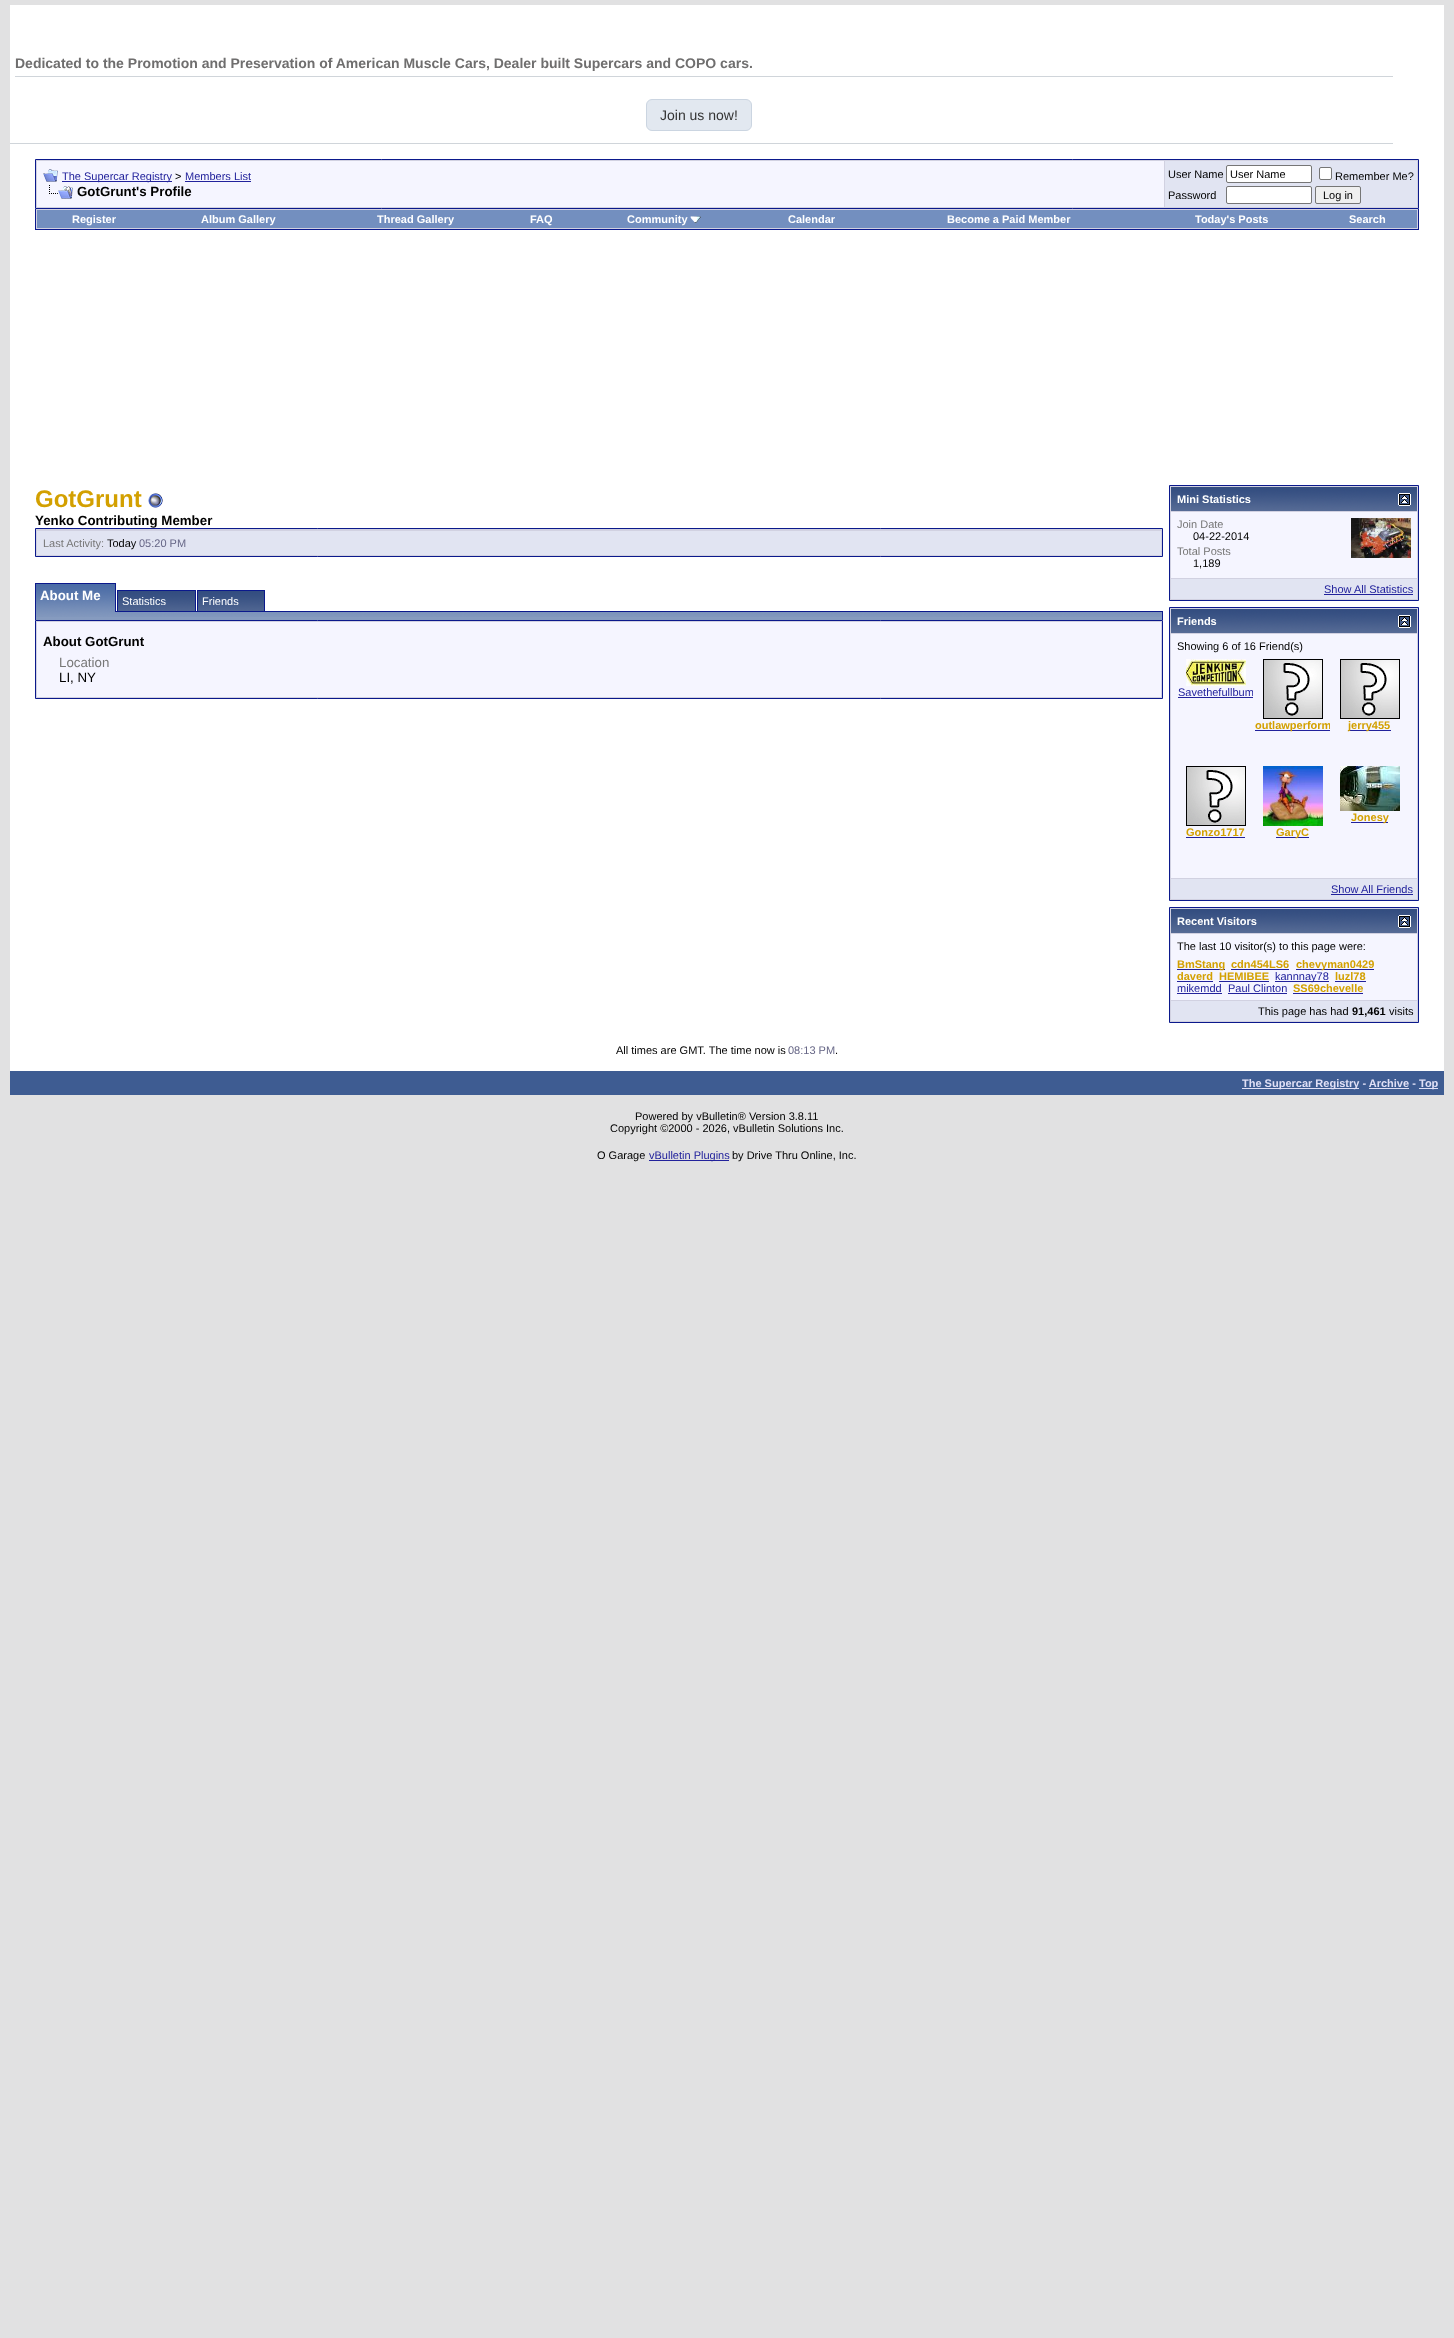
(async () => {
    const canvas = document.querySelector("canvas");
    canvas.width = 1454;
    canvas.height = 2338;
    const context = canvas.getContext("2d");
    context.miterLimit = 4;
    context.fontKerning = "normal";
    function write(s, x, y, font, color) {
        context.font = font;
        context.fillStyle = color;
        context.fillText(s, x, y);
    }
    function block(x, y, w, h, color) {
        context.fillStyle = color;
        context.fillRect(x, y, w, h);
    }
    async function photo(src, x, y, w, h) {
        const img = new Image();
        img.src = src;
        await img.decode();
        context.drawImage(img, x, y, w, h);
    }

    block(0, 0, 1454, 2338, "rgb(225, 225, 226)");
    block(10, 5, 1434, 1066, "rgb(255, 255, 255)");
    block(15, 76, 1378, 1, "rgb(208, 213, 218)");
    write("Dedicated to the Promotion and Preservation of American Muscle Cars, Dealer built Supercars and COPO cars.", 15, 68, "bold 14px Liberation Sans", "rgb(111, 110, 110)");
    block(10, 143, 1383, 1, "rgb(208, 213, 218)");
    context.fillStyle = "rgb(226, 232, 240)";
    context.beginPath();
    context.roundRect(646.5, 99.5, 105, 31, 5.5);
    context.fill();
    context.strokeStyle = "rgb(203, 213, 225)";
    context.stroke();
    write("Join us now!", 660, 120, "14px Liberation Sans", "rgb(51, 51, 51)");
    context.fillStyle = "rgb(209, 209, 225)";
    context.beginPath();
    context.rect(35.5, 159.5, 1383, 49);
    context.fill();
    context.strokeStyle = "rgb(11, 25, 140)";
    context.stroke();
    block(37, 161, 1127, 46, "rgb(245, 245, 255)");
    await photo("media/1.png", 43, 169, 15, 13);
    block(62, 181, 110, 1, "rgb(34, 34, 156)");
    write("The Supercar Registry", 62, 180, "11px Liberation Sans", "rgb(34, 34, 156)");
    write(">", 175, 180, "11px Liberation Sans", "rgb(0, 0, 0)");
    write("Members List", 185, 180, "11px Liberation Sans", "rgb(34, 34, 156)");
    block(185, 181, 66, 1, "rgb(34, 34, 156)");
    await photo("media/2.png", 49, 185, 24, 14);
    write("GotGrunt's Profile", 77, 196, "bold 13.3px Liberation Sans", "rgb(0, 0, 0)");
    block(1165, 161, 252, 46, "rgb(225, 228, 242)");
    write("User Name", 1168, 178, "11px Liberation Sans", "rgb(0, 0, 0)");
    context.fillStyle = "rgb(255, 255, 255)";
    context.beginPath();
    context.roundRect(1226.5, 165.5, 85, 17, 1.5);
    context.fill();
    context.strokeStyle = "rgb(118, 118, 118)";
    context.stroke();
    write("User Name", 1230, 178, "11px Liberation Sans", "rgb(0, 0, 0)");
    context.fillStyle = "rgb(255, 255, 255)";
    context.beginPath();
    context.roundRect(1319.5, 167.5, 12, 12, 1.5);
    context.fill();
    context.stroke();
    write("Remember Me?", 1335, 180, "11px Liberation Sans", "rgb(0, 0, 0)");
    write("Password", 1168, 199, "11px Liberation Sans", "rgb(0, 0, 0)");
    context.fillStyle = "rgb(255, 255, 255)";
    context.beginPath();
    context.roundRect(1226.5, 186.5, 85, 17, 1.5);
    context.fill();
    context.stroke();
    context.fillStyle = "rgb(239, 239, 239)";
    context.beginPath();
    context.roundRect(1315.5, 186.5, 45, 17, 1.5);
    context.fill();
    context.stroke();
    write("Log in", 1323, 199, "11px Liberation Sans", "rgb(0, 0, 0)");
    block(36, 209, 1382, 20, "rgb(209, 209, 225)");
    block(1418, 209, 1, 21, "rgb(11, 25, 140)");
    block(35, 229, 1384, 1, "rgb(11, 25, 140)");
    block(35, 209, 1, 21, "rgb(11, 25, 140)");
    block(37, 210, 1380, 18, "rgb(115, 143, 191)");
    write("Register", 72, 223, "bold 11px Liberation Sans", "rgb(255, 255, 255)");
    write("Album Gallery", 201, 223, "bold 11px Liberation Sans", "rgb(255, 255, 255)");
    write("Thread Gallery", 377, 223, "bold 11px Liberation Sans", "rgb(255, 255, 255)");
    write("FAQ", 530, 223, "bold 11px Liberation Sans", "rgb(255, 255, 255)");
    write("Community", 627, 223, "bold 11px Liberation Sans", "rgb(255, 255, 255)");
    await photo("media/3.png", 690, 216, 11, 7);
    write("Calendar", 788, 223, "bold 11px Liberation Sans", "rgb(255, 255, 255)");
    write("Become a Paid Member", 947, 223, "bold 11px Liberation Sans", "rgb(255, 255, 255)");
    write("Today's Posts", 1195, 223, "bold 11px Liberation Sans", "rgb(255, 255, 255)");
    write("Search", 1349, 223, "bold 11px Liberation Sans", "rgb(255, 255, 255)");
    write("GotGrunt", 35, 507, "bold 24px Liberation Sans", "rgb(211, 160, 0)");
    await photo("media/4.png", 148, 493, 15, 15);
    write("Yenko Contributing Member", 35, 525, "bold 13.3px Liberation Sans", "rgb(0, 0, 0)");
    context.fillStyle = "rgb(209, 209, 225)";
    context.beginPath();
    context.rect(35.5, 528.5, 1127, 28);
    context.fill();
    context.strokeStyle = "rgb(11, 25, 140)";
    context.stroke();
    block(37, 531, 1124, 24, "rgb(225, 228, 242)");
    write("Last Activity:", 43, 547, "11px Liberation Sans", "rgb(119, 119, 119)");
    write("Today", 107, 547, "11px Liberation Sans", "rgb(0, 0, 0)");
    write("05:20 PM", 139, 547, "11px Liberation Sans", "rgb(102, 102, 134)");
    await photo("media/5.png", 36, 584, 79, 28);
    block(35, 583, 81, 1, "rgb(11, 25, 140)");
    block(115, 583, 1, 29, "rgb(11, 25, 140)");
    block(35, 611, 1, 9, "rgb(11, 25, 140)");
    block(35, 583, 1, 29, "rgb(11, 25, 140)");
    write("About Me", 40, 600, "bold 13.3px Liberation Sans", "rgb(255, 255, 255)");
    await photo("media/6.png", 118, 591, 77, 20);
    block(116, 611, 1047, 1, "rgb(11, 25, 140)");
    context.strokeRect(117.5, 590.5, 78, 21);
    write("Statistics", 122, 605, "11px Liberation Sans", "rgb(255, 255, 255)");
    await photo("media/7.png", 198, 591, 66, 20);
    context.strokeRect(197.5, 590.5, 67, 21);
    write("Friends", 202, 605, "11px Liberation Sans", "rgb(255, 255, 255)");
    block(36, 617, 1126, 3, "rgb(134, 155, 191)");
    await photo("media/8.png", 36, 612, 1126, 5);
    block(1162, 611, 1, 9, "rgb(11, 25, 140)");
    context.fillStyle = "rgb(209, 209, 225)";
    context.beginPath();
    context.rect(35.5, 620.5, 1127, 78);
    context.fill();
    context.stroke();
    block(37, 622, 1124, 75, "rgb(245, 245, 255)");
    write("About GotGrunt", 43, 646, "bold 13.3px Liberation Sans", "rgb(0, 0, 0)");
    write("Location", 59, 667, "13.3px Liberation Sans", "rgb(119, 119, 119)");
    write("LI, NY", 59, 682, "13.3px Liberation Sans", "rgb(0, 0, 0)");
    context.fillStyle = "rgb(209, 209, 225)";
    context.beginPath();
    context.rect(1169.5, 485.5, 249, 115);
    context.fill();
    context.stroke();
    await photo("media/9.png", 1171, 487, 246, 24);
    write("Mini Statistics", 1177, 503, "bold 11px Liberation Sans", "rgb(255, 255, 255)");
    await photo("media/10.png", 1398, 493, 13, 13);
    block(1171, 512, 246, 66, "rgb(245, 245, 255)");
    write("Join Date", 1177, 528, "11px Liberation Sans", "rgb(119, 119, 119)");
    write("04-22-2014", 1193, 540, "11px Liberation Sans", "rgb(0, 0, 0)");
    write("Total Posts", 1177, 555, "11px Liberation Sans", "rgb(119, 119, 119)");
    write("1,189", 1193, 567, "11px Liberation Sans", "rgb(0, 0, 0)");
    await photo("media/11.png", 1351, 518, 60, 40);
    block(1171, 579, 246, 20, "rgb(225, 228, 242)");
    write("Show All Statistics", 1324, 593, "11px Liberation Sans", "rgb(34, 34, 156)");
    block(1324, 594, 89, 1, "rgb(34, 34, 156)");
    context.fillStyle = "rgb(209, 209, 225)";
    context.beginPath();
    context.rect(1169.5, 607.5, 249, 293);
    context.fill();
    context.stroke();
    await photo("media/9.png", 1171, 609, 246, 24);
    write("Friends", 1177, 625, "bold 11px Liberation Sans", "rgb(255, 255, 255)");
    await photo("media/10.png", 1398, 615, 13, 13);
    block(1171, 634, 246, 244, "rgb(245, 245, 255)");
    write("Showing 6 of 16 Friend(s)", 1177, 650, "11px Liberation Sans", "rgb(0, 0, 0)");
    await photo("media/12.png", 1186, 659, 60, 27);
    context.save();
    context.beginPath();
    context.rect(1178, 659, 75, 105);
    context.clip();
    write("Savethefullbum", 1178, 696, "11px Liberation Sans", "rgb(34, 34, 156)");
    context.restore();
    block(1178, 697, 75, 1, "rgb(34, 34, 156)");
    await photo("media/13.png", 1263, 659, 60, 60);
    block(1255, 730, 75, 1, "rgb(34, 34, 156)");
    context.save();
    context.beginPath();
    context.rect(1255, 659, 75, 105);
    context.clip();
    write("outlawperform", 1255, 729, "bold 11px Liberation Sans", "rgb(211, 160, 0)");
    context.restore();
    await photo("media/13.png", 1340, 659, 60, 60);
    block(1348, 730, 43, 1, "rgb(34, 34, 156)");
    write("jerry455", 1348, 729, "bold 11px Liberation Sans", "rgb(211, 160, 0)");
    await photo("media/14.png", 1340, 766, 60, 45);
    block(1351, 822, 37, 1, "rgb(34, 34, 156)");
    write("Jonesy", 1351, 821, "bold 11px Liberation Sans", "rgb(211, 160, 0)");
    await photo("media/13.png", 1186, 766, 60, 60);
    write("Gonzo1717", 1186, 836, "bold 11px Liberation Sans", "rgb(211, 160, 0)");
    block(1186, 837, 59, 1, "rgb(34, 34, 156)");
    await photo("media/15.png", 1263, 766, 60, 60);
    block(1276, 837, 33, 1, "rgb(34, 34, 156)");
    write("GaryC", 1276, 836, "bold 11px Liberation Sans", "rgb(211, 160, 0)");
    block(1171, 879, 246, 20, "rgb(225, 228, 242)");
    write("Show All Friends", 1331, 893, "11px Liberation Sans", "rgb(34, 34, 156)");
    block(1331, 894, 82, 1, "rgb(34, 34, 156)");
    context.fillStyle = "rgb(209, 209, 225)";
    context.beginPath();
    context.rect(1169.5, 907.5, 249, 115);
    context.fill();
    context.stroke();
    await photo("media/9.png", 1171, 909, 246, 24);
    write("Recent Visitors", 1177, 925, "bold 11px Liberation Sans", "rgb(255, 255, 255)");
    await photo("media/10.png", 1398, 915, 13, 13);
    block(1171, 934, 246, 66, "rgb(245, 245, 255)");
    write("The last 10 visitor(s) to this page were:", 1177, 950, "11px Liberation Sans", "rgb(0, 0, 0)");
    block(1177, 969, 48, 1, "rgb(34, 34, 156)");
    write("BmStang", 1177, 968, "bold 11px Liberation Sans", "rgb(211, 160, 0)");
    write("cdn454LS6", 1231, 968, "bold 11px Liberation Sans", "rgb(211, 160, 0)");
    block(1231, 969, 58, 1, "rgb(34, 34, 156)");
    block(1296, 969, 78, 1, "rgb(34, 34, 156)");
    write("chevyman0429", 1296, 968, "bold 11px Liberation Sans", "rgb(211, 160, 0)");
    write("daverd", 1177, 980, "bold 11px Liberation Sans", "rgb(211, 160, 0)");
    block(1177, 981, 36, 1, "rgb(34, 34, 156)");
    write("HEMIBEE", 1219, 980, "bold 11px Liberation Sans", "rgb(211, 160, 0)");
    block(1219, 981, 50, 1, "rgb(34, 34, 156)");
    block(1275, 981, 54, 1, "rgb(34, 34, 156)");
    write("kannnay78", 1275, 980, "11px Liberation Sans", "rgb(34, 34, 156)");
    write("luzl78", 1335, 980, "bold 11px Liberation Sans", "rgb(211, 160, 0)");
    block(1335, 981, 31, 1, "rgb(34, 34, 156)");
    write("mikemdd", 1177, 992, "11px Liberation Sans", "rgb(34, 34, 156)");
    block(1177, 993, 45, 1, "rgb(34, 34, 156)");
    write("Paul Clinton", 1228, 992, "11px Liberation Sans", "rgb(34, 34, 156)");
    block(1228, 993, 59, 1, "rgb(34, 34, 156)");
    write("SS69chevelle", 1293, 992, "bold 11px Liberation Sans", "rgb(211, 160, 0)");
    block(1293, 993, 70, 1, "rgb(34, 34, 156)");
    block(1171, 1001, 246, 20, "rgb(225, 228, 242)");
    write("This page has had", 1258, 1015, "11px Liberation Sans", "rgb(0, 0, 0)");
    write("91,461", 1352, 1015, "bold 11px Liberation Sans", "rgb(0, 0, 0)");
    write("visits", 1389, 1015, "11px Liberation Sans", "rgb(0, 0, 0)");
    write("All times are GMT. The time now is", 616, 1054, "11px Liberation Sans", "rgb(0, 0, 0)");
    write("08:13 PM", 788, 1054, "11px Liberation Sans", "rgb(102, 102, 134)");
    write(".", 835, 1054, "11px Liberation Sans", "rgb(0, 0, 0)");
    block(10, 1071, 1434, 24, "rgb(62, 92, 146)");
    block(1242, 1088, 117, 1, "rgb(224, 224, 246)");
    write("The Supercar Registry - Archive -", 1242, 1087, "bold 11px Liberation Sans", "rgb(224, 224, 246)");
    block(1369, 1088, 40, 1, "rgb(224, 224, 246)");
    block(1419, 1088, 19, 1, "rgb(224, 224, 246)");
    write("Top", 1419, 1087, "bold 11px Liberation Sans", "rgb(224, 224, 246)");
    write("Powered by vBulletin® Version 3.8.11", 635, 1120, "11px Liberation Sans", "rgb(0, 0, 0)");
    write("Copyright ©2000 - 2026, vBulletin Solutions Inc.", 610, 1132, "11px Liberation Sans", "rgb(0, 0, 0)");
    write("O Garage", 597, 1159, "11px Liberation Sans", "rgb(0, 0, 0)");
    block(649, 1160, 80, 1, "rgb(34, 34, 156)");
    write("vBulletin Plugins", 649, 1159, "11px Liberation Sans", "rgb(34, 34, 156)");
    write("by Drive Thru Online, Inc.", 732, 1159, "11px Liberation Sans", "rgb(0, 0, 0)");
})();
